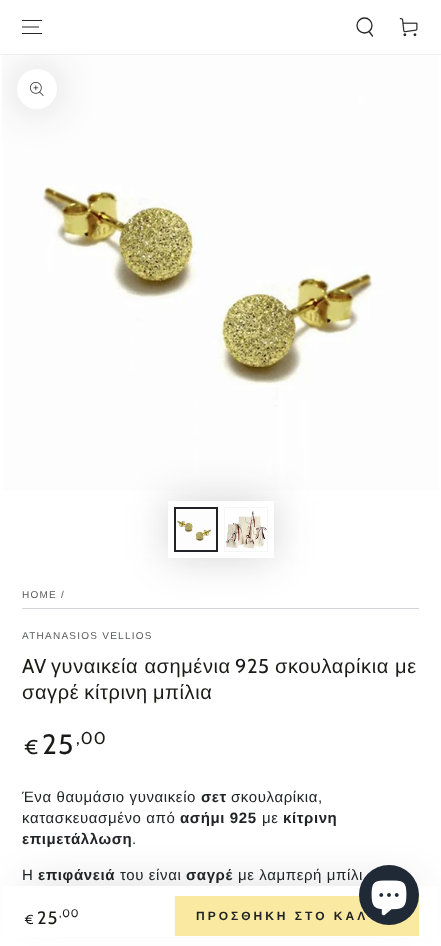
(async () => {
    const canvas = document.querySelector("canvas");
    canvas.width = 441;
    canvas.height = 946;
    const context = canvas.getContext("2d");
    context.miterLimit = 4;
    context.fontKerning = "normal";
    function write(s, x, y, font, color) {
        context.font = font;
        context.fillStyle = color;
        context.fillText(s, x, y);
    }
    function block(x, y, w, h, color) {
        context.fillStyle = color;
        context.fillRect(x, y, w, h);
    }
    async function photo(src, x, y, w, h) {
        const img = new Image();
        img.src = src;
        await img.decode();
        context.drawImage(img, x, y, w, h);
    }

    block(0, 0, 441, 946, "rgb(255, 255, 255)");
    await photo("media/3.png", 2, 54, 437, 437);
    context.save();
    context.beginPath();
    context.rect(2, 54, 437, 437);
    context.clip();
    context.fillStyle = "rgba(33, 35, 38, 0.2)";
    context.filter = "blur(20px)";
    context.beginPath();
    context.roundRect(17, 69, 40, 40, 20);
    context.fill();
    context.filter = "none";
    context.restore();
    block(0, 54, 441, 1, "rgba(210, 213, 217, 0.3)");
    context.beginPath();
    context.moveTo(22, 33.5);
    context.lineTo(42, 33.5);
    context.moveTo(22, 27);
    context.lineTo(39, 27);
    context.moveTo(22, 20.5);
    context.lineTo(42, 20.5);
    context.strokeStyle = "rgb(40, 40, 40)";
    context.lineWidth = 1.2;
    context.stroke();
    context.beginPath();
    context.arc(364.5, 25.5, 7.5, 0, Math.PI * 2);
    context.lineWidth = 1.3;
    context.stroke();
    context.beginPath();
    context.moveTo(369, 31.5);
    context.lineTo(372.5, 36);
    context.lineCap = "round";
    context.stroke();
    await photo("media/1.png", 399, 18, 19, 19);
    context.fillStyle = "rgb(255, 255, 255)";
    context.beginPath();
    context.arc(37, 89, 20, 0, Math.PI * 2);
    context.fill();
    await photo("media/2.png", 30, 82, 14, 14);
    block(22, 608, 397, 1, "rgb(210, 213, 217)");
    context.save();
    context.beginPath();
    context.moveTo(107, 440);
    context.lineTo(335, 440);
    context.lineTo(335, 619);
    context.lineTo(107, 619);
    context.closePath();
    context.moveTo(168, 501);
    context.lineTo(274, 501);
    context.lineTo(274, 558);
    context.lineTo(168, 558);
    context.closePath();
    context.clip("evenodd");
    context.fillStyle = "rgba(33, 35, 38, 0.2)";
    context.filter = "blur(20px)";
    context.beginPath();
    context.rect(168, 501, 106, 57);
    context.fill();
    context.filter = "none";
    context.restore();
    await photo("media/4.png", 176, 509, 40, 41);
    context.strokeStyle = "rgb(33, 35, 38)";
    context.lineWidth = 2;
    context.strokeRect(175, 508, 42, 43);
    await photo("media/5.png", 224, 507, 44, 45);
    context.strokeStyle = "rgba(33, 35, 38, 0.04)";
    context.lineWidth = 1;
    context.strokeRect(224.5, 507.5, 43, 44);
    context.letterSpacing = "1.25px";
    write("HOME", 22, 598, "10px Liberation Sans", "rgb(89, 90, 92)");
    write("/", 61, 598, "10px Liberation Sans", "rgb(89, 90, 92)");
    write("ATHANASIOS VELLIOS", 22, 639, "10px Liberation Sans", "rgb(89, 90, 92)");
    context.letterSpacing = "0.6px";
    write("AV", 22, 673, "20px Cabin", "rgb(26, 27, 24)");
    write("γυναικεία ασημένια", 51, 673, "20px Liberation Sans", "rgb(26, 27, 24)");
    write("925", 235, 673, "20px Cabin", "rgb(26, 27, 24)");
    write("σκουλαρίκια με", 275, 673, "20px Liberation Sans", "rgb(26, 27, 24)");
    context.wordSpacing = "-1px";
    write("σαγρέ κίτρινη μπίλια", 22, 699, "20px Liberation Sans", "rgb(26, 27, 24)");
    context.letterSpacing = "1.25px";
    context.wordSpacing = "0px";
    write("€", 25, 754, "20px Cabin", "rgb(26, 27, 24)");
    write("25", 42, 754, "28px Cabin", "rgb(26, 27, 24)");
    write(",00", 76, 744, "17px Cabin", "rgb(26, 27, 24)");
    context.letterSpacing = "0.6px";
    write("Ένα θαυμάσιο γυναικείο", 22, 802, "15px Liberation Sans", "rgb(33, 35, 38)");
    write("σετ", 201, 802, "bold 15px Liberation Sans", "rgb(33, 35, 38)");
    write("σκουλαρίκια,", 231, 802, "15px Liberation Sans", "rgb(33, 35, 38)");
    write("κατασκευασμένο από", 22, 823, "15px Liberation Sans", "rgb(33, 35, 38)");
    write("ασήμι 925", 180, 823, "bold 15px Liberation Sans", "rgb(33, 35, 38)");
    write("με", 262, 823, "15px Liberation Sans", "rgb(33, 35, 38)");
    write("κίτρινη", 283, 823, "bold 15px Liberation Sans", "rgb(33, 35, 38)");
    write("επιμετάλλωση", 22, 844, "bold 15px Liberation Sans", "rgb(33, 35, 38)");
    write(".", 132, 844, "15px Liberation Sans", "rgb(33, 35, 38)");
    write("Η", 22, 880, "15px Liberation Sans", "rgb(33, 35, 38)");
    write("επιφάνειά", 38, 880, "bold 15px Liberation Sans", "rgb(33, 35, 38)");
    write("του είναι", 120, 880, "15px Liberation Sans", "rgb(33, 35, 38)");
    write("σαγρέ", 186, 880, "bold 15px Liberation Sans", "rgb(33, 35, 38)");
    write("με λαμπερή μπίλι", 238, 880, "15px Liberation Sans", "rgb(33, 35, 38)");
    context.fillStyle = "rgba(33, 35, 38, 0.2)";
    context.filter = "blur(20px)";
    context.beginPath();
    context.roundRect(22, 886, 397, 20, 10);
    context.fill();
    context.filter = "none";
    block(3, 886, 435, 51, "rgb(255, 255, 255)");
    context.letterSpacing = "1px";
    write("€", 25, 924, "13px Cabin", "rgb(26, 27, 24)");
    write("25", 37, 924, "18px Cabin", "rgb(26, 27, 24)");
    write(",00", 59, 917, "11px Cabin", "rgb(26, 27, 24)");
    block(175, 896, 244, 40, "rgb(250, 234, 161)");
    context.letterSpacing = "3px";
    write("ΠΡΟΣΘΗΚΗ ΣΤΟ ΚΑΛ", 196, 920, "bold 12px Liberation Sans", "rgb(33, 35, 38)");
    context.fillStyle = "rgb(32, 42, 54)";
    context.beginPath();
    context.arc(389, 895, 30, 0, Math.PI * 2);
    context.fill();
    await photo("media/6.png", 371, 880, 36, 36);
})();
